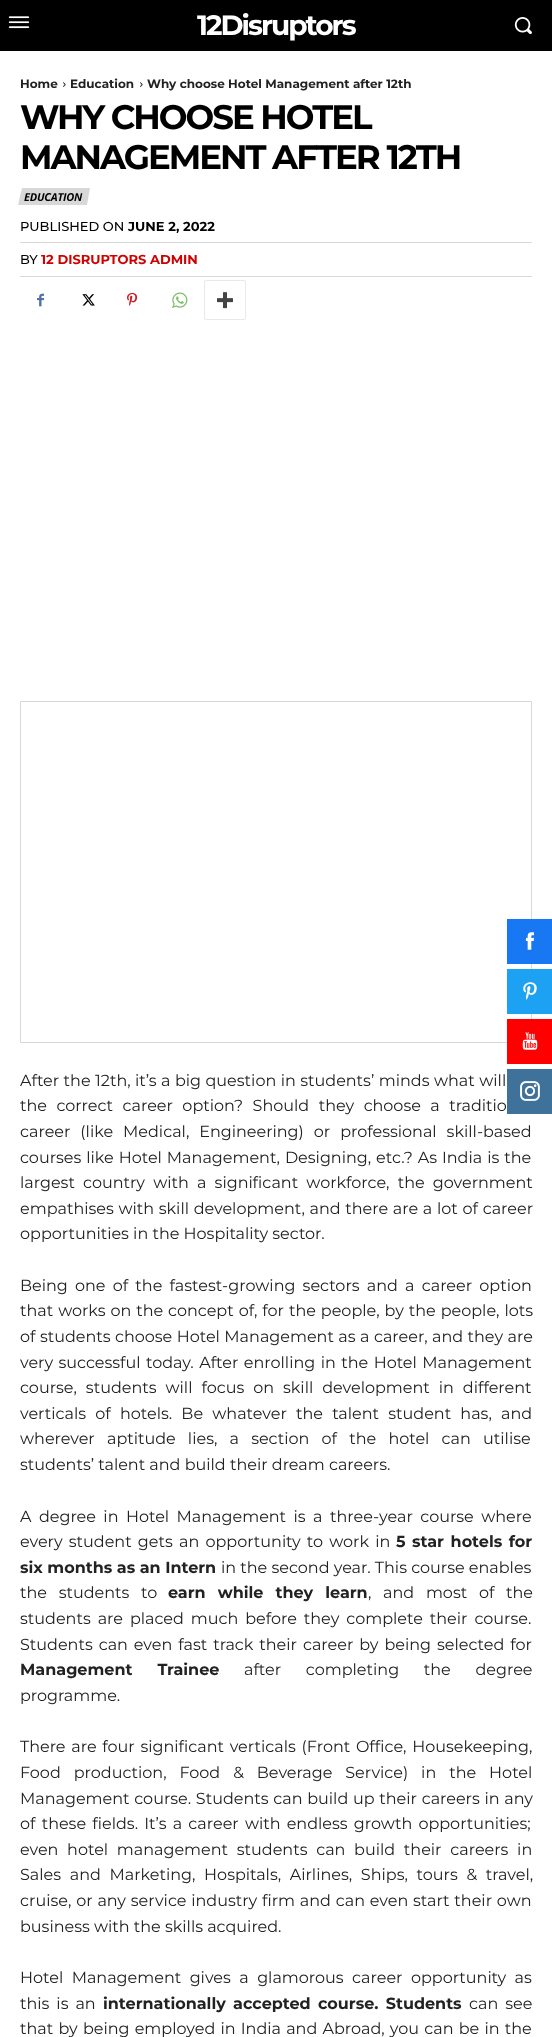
(async () => {
    const canvas = document.querySelector("canvas");
    canvas.width = 552;
    canvas.height = 2037;
    const context = canvas.getContext("2d");
    context.miterLimit = 4;
    context.fontKerning = "normal";
    function write(s, x, y, font, color) {
        context.font = font;
        context.fillStyle = color;
        context.fillText(s, x, y);
    }
    function block(x, y, w, h, color) {
        context.fillStyle = color;
        context.fillRect(x, y, w, h);
    }
    async function photo(src, x, y, w, h) {
        const img = new Image();
        img.src = src;
        await img.decode();
        context.drawImage(img, x, y, w, h);
    }

    block(0, 0, 552, 2037, "rgb(255, 255, 255)");
    block(0, 0, 552, 51, "rgb(0, 0, 0)");
    await photo("media/1.png", 8, 16, 22, 13);
    context.letterSpacing = "-2px";
    write("12Disruptors", 197, 35, "bold 28px Montserrat", "rgb(255, 255, 255)");
    await photo("media/2.png", 514, 17, 18, 18);
    context.letterSpacing = "0px";
    write("Home", 20, 88, "bold 12px Montserrat", "rgb(34, 34, 34)");
    await photo("media/3.png", 63, 82, 3, 5);
    write("Education", 70, 88, "bold 12px Montserrat", "rgb(34, 34, 34)");
    await photo("media/3.png", 140, 82, 3, 5);
    write("Why choose Hotel Management after 12th", 147, 88, "bold 12px Montserrat", "rgb(34, 34, 34)");
    context.letterSpacing = "-2px";
    write("WHY CHOOSE HOTEL", 20, 129, "bold 34px Montserrat", "rgb(0, 0, 0)");
    write("MANAGEMENT AFTER 12TH", 20, 169, "bold 34px Montserrat", "rgb(0, 0, 0)");
    context.fillStyle = "rgb(216, 216, 216)";
    context.beginPath();
    context.moveTo(22, 188);
    context.lineTo(90, 188);
    context.lineTo(87, 205);
    context.lineTo(18, 205);
    context.closePath();
    context.fill();
    context.letterSpacing = "-0.25px";
    write("EDUCATION", 24, 201, "italic bold 11px Open Sans", "rgb(0, 0, 0)");
    block(20, 242, 512, 1, "rgb(216, 216, 216)");
    context.letterSpacing = "0px";
    write("PUBLISHED ON", 20, 231, "500 13px Montserrat", "rgb(0, 0, 0)");
    write("JUNE 2, 2022", 128, 231, "bold 13px Montserrat", "rgb(0, 0, 0)");
    block(20, 276, 512, 1, "rgb(216, 216, 216)");
    write("BY", 20, 264, "500 13px Montserrat", "rgb(0, 0, 0)");
    write("12 DISRUPTORS ADMIN", 41, 264, "bold 13px Montserrat", "rgb(206, 0, 0)");
    await photo("media/4.png", 37, 293, 7, 14);
    await photo("media/5.png", 82, 294, 13, 12);
    await photo("media/6.png", 127, 292, 11, 14);
    await photo("media/7.png", 172, 292, 16, 16);
    context.beginPath();
    context.roundRect(204.5, 280.5, 41, 39, 1.5);
    context.strokeStyle = "rgb(233, 233, 233)";
    context.stroke();
    await photo("media/8.png", 217, 292, 16, 17);
    context.strokeStyle = "rgb(216, 216, 216)";
    context.strokeRect(20.5, 701.5, 511, 341);
    context.wordSpacing = "0.25px";
    write("After the 12th, it’s a big question in students’ minds what will", 20, 1086, "16px Montserrat", "rgb(34, 34, 34)");
    context.wordSpacing = "5.25px";
    write("the correct career option? Should they choose a traditio", 20, 1111, "16px Montserrat", "rgb(34, 34, 34)");
    context.wordSpacing = "5.75px";
    write("career (like Medical, Engineering) or professional skill-based", 20, 1137, "16px Montserrat", "rgb(34, 34, 34)");
    context.wordSpacing = "0.75px";
    write("courses like Hotel Management, Designing, etc.? As India is the", 20, 1163, "16px Montserrat", "rgb(34, 34, 34)");
    context.wordSpacing = "4px";
    write("largest country with a significant workforce, the government", 20, 1188, "16px Montserrat", "rgb(34, 34, 34)");
    context.wordSpacing = "0.5px";
    write("empathises with skill development, and there are a lot of career", 20, 1214, "16px Montserrat", "rgb(34, 34, 34)");
    context.wordSpacing = "0px";
    write("opportunities in the Hospitality sector.", 20, 1239, "16px Montserrat", "rgb(34, 34, 34)");
    context.wordSpacing = "3px";
    write("Being one of the fastest-growing sectors and a career option", 20, 1291, "16px Montserrat", "rgb(34, 34, 34)");
    context.wordSpacing = "0.75px";
    write("that works on the concept of, for the people, by the people, lots", 20, 1316, "16px Montserrat", "rgb(34, 34, 34)");
    context.wordSpacing = "0.25px";
    write("of students choose Hotel Management as a career, and they are", 20, 1342, "16px Montserrat", "rgb(34, 34, 34)");
    context.wordSpacing = "1.25px";
    write("very successful today. After enrolling in the Hotel Management", 20, 1368, "16px Montserrat", "rgb(34, 34, 34)");
    context.wordSpacing = "4.75px";
    write("course, students will focus on skill development in different", 20, 1393, "16px Montserrat", "rgb(34, 34, 34)");
    context.wordSpacing = "5px";
    write("verticals of hotels. Be whatever the talent student has, and", 20, 1419, "16px Montserrat", "rgb(34, 34, 34)");
    context.wordSpacing = "8px";
    write("wherever aptitude lies, a section of the hotel can utilise", 20, 1444, "16px Montserrat", "rgb(34, 34, 34)");
    context.wordSpacing = "0px";
    write("students’ talent and build their dream careers.", 20, 1470, "16px Montserrat", "rgb(34, 34, 34)");
    context.wordSpacing = "3.25px";
    write("A degree in Hotel Management is a three-year course where", 20, 1522, "16px Montserrat", "rgb(34, 34, 34)");
    context.wordSpacing = "2px";
    write("every student gets an opportunity to work in", 20, 1547, "16px Montserrat", "rgb(34, 34, 34)");
    write("5 star hotels for", 396, 1547, "bold 16px Montserrat", "rgb(34, 34, 34)");
    context.wordSpacing = "0px";
    write("six months as an Intern", 20, 1573, "bold 16px Montserrat", "rgb(34, 34, 34)");
    write("in the second year. This course enables", 221, 1573, "16px Montserrat", "rgb(34, 34, 34)");
    context.wordSpacing = "7.5px";
    write("the students to", 20, 1598, "16px Montserrat", "rgb(34, 34, 34)");
    write("earn while they learn", 168, 1598, "bold 16px Montserrat", "rgb(34, 34, 34)");
    write(", and most of the", 368, 1598, "16px Montserrat", "rgb(34, 34, 34)");
    context.wordSpacing = "2.75px";
    write("students are placed much before they complete their course.", 20, 1624, "16px Montserrat", "rgb(34, 34, 34)");
    context.wordSpacing = "1.75px";
    write("Students can even fast track their career by being selected for", 20, 1650, "16px Montserrat", "rgb(34, 34, 34)");
    context.wordSpacing = "20.5px";
    write("Management Trainee", 20, 1675, "bold 16px Montserrat", "rgb(34, 34, 34)");
    write("after completing the degree", 244, 1675, "16px Montserrat", "rgb(34, 34, 34)");
    context.wordSpacing = "0px";
    write("programme.", 20, 1701, "16px Montserrat", "rgb(34, 34, 34)");
    context.wordSpacing = "1.5px";
    write("There are four significant verticals (Front Office, Housekeeping,", 20, 1752, "16px Montserrat", "rgb(34, 34, 34)");
    context.wordSpacing = "8.75px";
    write("Food production, Food & Beverage Service) in the Hotel", 20, 1778, "16px Montserrat", "rgb(34, 34, 34)");
    context.wordSpacing = "0.5px";
    write("Management course. Students can build up their careers in any", 20, 1804, "16px Montserrat", "rgb(34, 34, 34)");
    context.wordSpacing = "2px";
    write("of these fields. It’s a career with endless growth opportunities;", 20, 1829, "16px Montserrat", "rgb(34, 34, 34)");
    context.wordSpacing = "4.5px";
    write("even hotel management students can build their careers in", 20, 1855, "16px Montserrat", "rgb(34, 34, 34)");
    write("Sales and Marketing, Hospitals, Airlines, Ships, tours & travel,", 20, 1880, "16px Montserrat", "rgb(34, 34, 34)");
    context.wordSpacing = "0.6px";
    write("cruise, or any service industry firm and can even start their own", 20, 1906, "16px Montserrat", "rgb(34, 34, 34)");
    context.wordSpacing = "0px";
    write("business with the skills acquired.", 20, 1932, "16px Montserrat", "rgb(34, 34, 34)");
    context.wordSpacing = "4.25px";
    write("Hotel Management gives a glamorous career opportunity as", 20, 1983, "16px Montserrat", "rgb(34, 34, 34)");
    context.wordSpacing = "2.75px";
    write("this is an", 20, 2009, "16px Montserrat", "rgb(34, 34, 34)");
    write("internationally accepted course. Students", 103, 2009, "bold 16px Montserrat", "rgb(34, 34, 34)");
    write("can see", 469, 2009, "16px Montserrat", "rgb(34, 34, 34)");
    context.wordSpacing = "1px";
    write("that by being employed in India and Abroad, you can be in the", 20, 2034, "16px Montserrat", "rgb(34, 34, 34)");
    block(507, 919, 45, 45, "rgb(24, 119, 242)");
    await photo("media/9.png", 525, 932, 9, 18);
    block(507, 969, 45, 45, "rgb(29, 161, 242)");
    await photo("media/10.png", 523, 982, 14, 18);
    block(507, 1019, 45, 45, "rgb(255, 0, 0)");
    await photo("media/11.png", 522, 1032, 16, 18);
    block(507, 1069, 45, 45, "rgb(63, 114, 155)");
    await photo("media/12.png", 520, 1081, 20, 20);
})();
